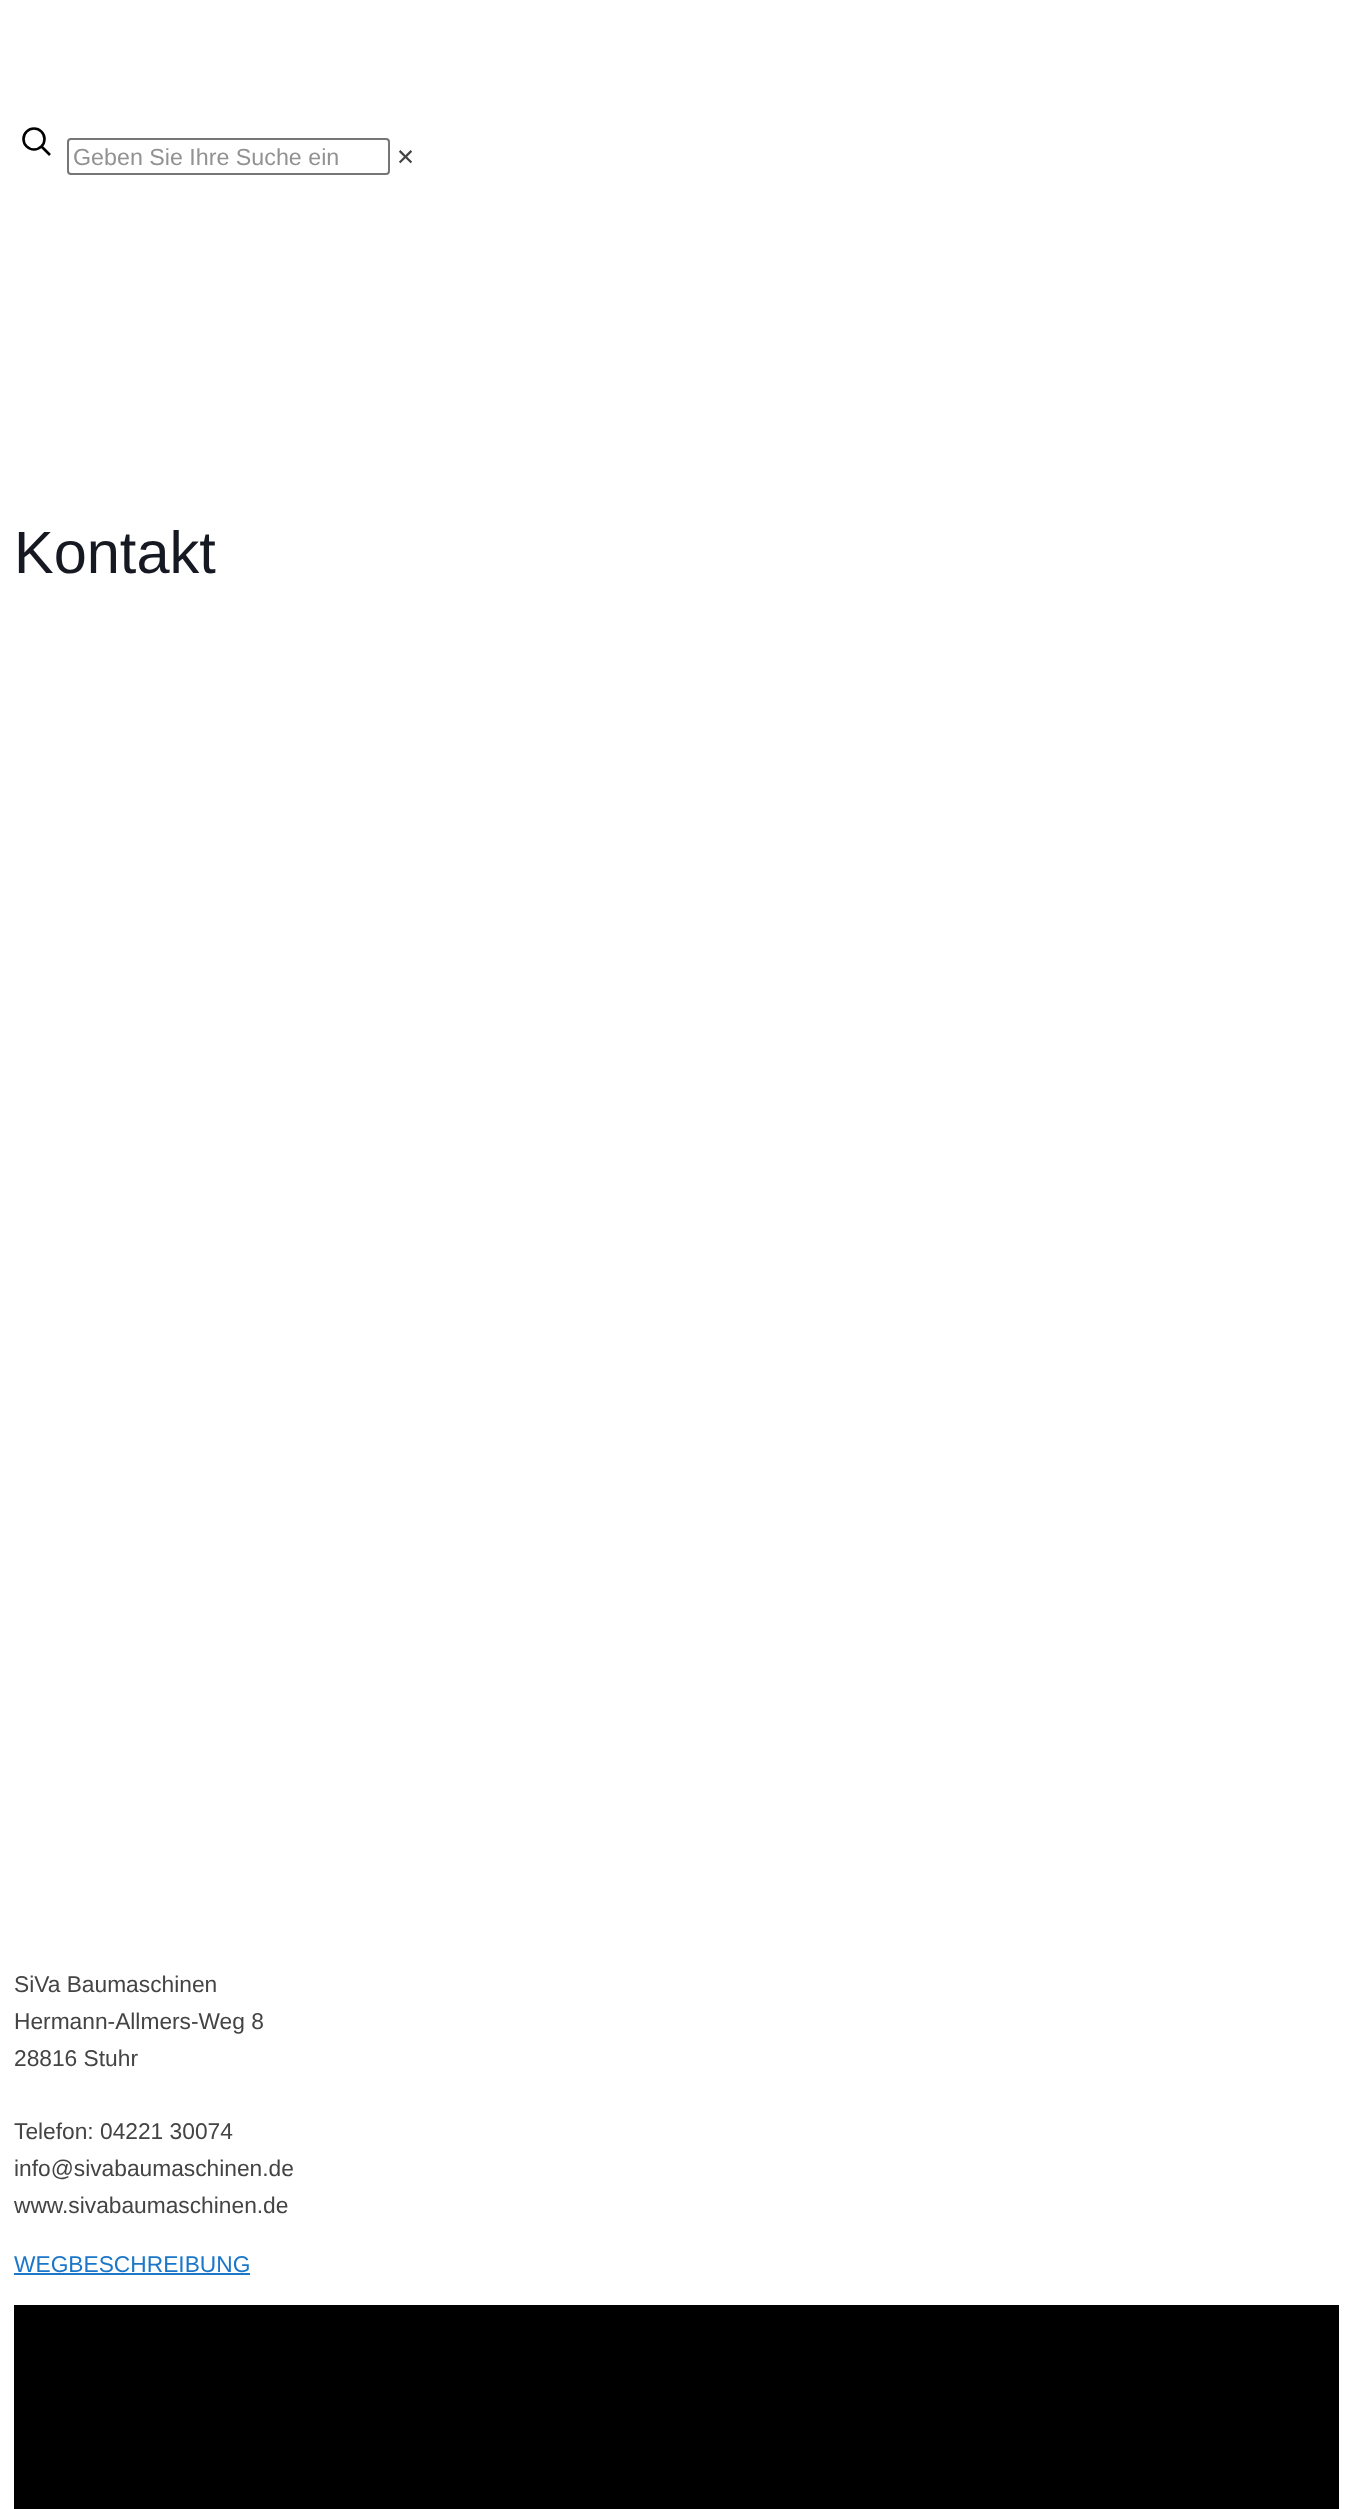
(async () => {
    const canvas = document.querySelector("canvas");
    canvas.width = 1352;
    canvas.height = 2509;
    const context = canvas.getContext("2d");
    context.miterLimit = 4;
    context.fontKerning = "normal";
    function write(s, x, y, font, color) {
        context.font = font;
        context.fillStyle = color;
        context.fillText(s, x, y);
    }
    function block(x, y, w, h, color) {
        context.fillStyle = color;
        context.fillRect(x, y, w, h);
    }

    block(0, 0, 1352, 2509, "rgb(255, 255, 255)");
    context.beginPath();
    context.arc(34, 139, 10.5, 0, Math.PI * 2);
    context.strokeStyle = "rgb(0, 0, 0)";
    context.lineWidth = 2.6;
    context.stroke();
    context.beginPath();
    context.moveTo(41.5, 146.5);
    context.lineTo(50, 155);
    context.stroke();
    context.beginPath();
    context.roundRect(68, 139, 321, 35, 3);
    context.strokeStyle = "rgb(118, 118, 118)";
    context.lineWidth = 2;
    context.stroke();
    write("Geben Sie Ihre Suche ein", 73, 165, "23.25px Liberation Sans", "rgb(146, 146, 146)");
    write("✕", 396, 165, "22.75px DejaVu Sans", "rgb(68, 68, 68)");
    write("Kontakt", 14, 573, "59.5px Liberation Sans", "rgb(22, 25, 34)");
    write("SiVa Baumaschinen", 14, 1992, "22.75px Liberation Sans", "rgb(68, 68, 68)");
    write("Hermann-Allmers-Weg 8", 14, 2029, "22.75px Liberation Sans", "rgb(68, 68, 68)");
    write("28816 Stuhr", 14, 2066, "22.75px Liberation Sans", "rgb(68, 68, 68)");
    write("Telefon: 04221 30074", 14, 2139, "22.75px Liberation Sans", "rgb(68, 68, 68)");
    write("info@sivabaumaschinen.de", 14, 2176, "22.75px Liberation Sans", "rgb(68, 68, 68)");
    write("www.sivabaumaschinen.de", 14, 2213, "22.75px Liberation Sans", "rgb(68, 68, 68)");
    write("WEGBESCHREIBUNG", 14, 2272, "22.75px Liberation Sans", "rgb(28, 119, 200)");
    block(14, 2273, 236, 2, "rgb(28, 119, 200)");
    block(14, 2305, 1325, 204, "rgb(0, 0, 0)");
})();
